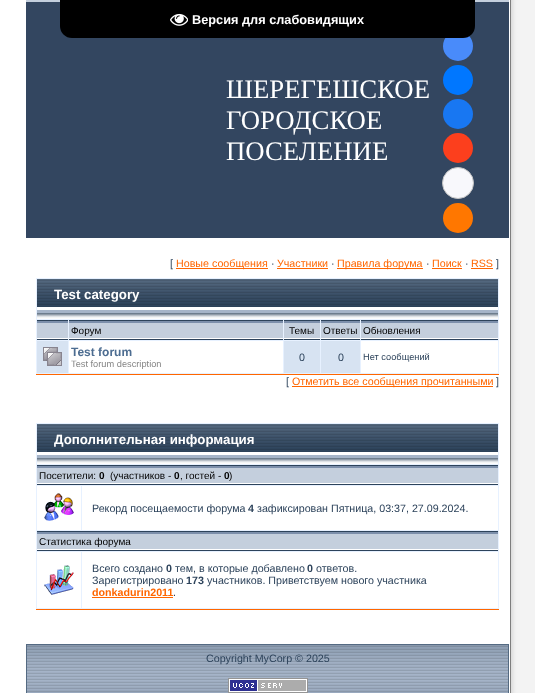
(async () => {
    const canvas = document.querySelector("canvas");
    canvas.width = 535;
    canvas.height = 693;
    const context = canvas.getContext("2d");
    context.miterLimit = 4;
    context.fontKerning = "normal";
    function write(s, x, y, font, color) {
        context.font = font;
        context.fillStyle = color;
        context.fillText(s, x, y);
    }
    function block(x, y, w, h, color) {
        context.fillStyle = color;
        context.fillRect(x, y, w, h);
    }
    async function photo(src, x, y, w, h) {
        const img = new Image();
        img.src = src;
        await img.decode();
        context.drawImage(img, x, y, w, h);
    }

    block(0, 0, 535, 693, "rgb(255, 255, 255)");
    block(26, 0, 483, 2, "rgb(196, 207, 221)");
    block(26, 2, 483, 236, "rgb(51, 70, 96)");
    context.fillStyle = "rgb(73, 139, 250)";
    context.beginPath();
    context.arc(458, 46, 15, 0, Math.PI * 2);
    context.fill();
    context.fillStyle = "rgb(0, 0, 0)";
    context.beginPath();
    context.roundRect(60, 0, 415, 38, [0, 0, 12, 12]);
    context.fill();
    await photo("media/1.png", 170, 13, 18, 13);
    write("Версия для слабовидящих", 192, 24, "bold 12.75px Liberation Sans", "rgb(255, 255, 255)");
    write("ШЕРЕГЕШСКОЕ", 226, 98, "26.75px Liberation Serif", "rgb(255, 255, 255)");
    write("ГОРОДСКОЕ", 226, 129, "26.75px Liberation Serif", "rgb(255, 255, 255)");
    write("ПОСЕЛЕНИЕ", 226, 160, "26.75px Liberation Serif", "rgb(255, 255, 255)");
    context.fillStyle = "rgb(0, 119, 255)";
    context.beginPath();
    context.arc(458, 80, 15, 0, Math.PI * 2);
    context.fill();
    context.fillStyle = "rgb(24, 119, 242)";
    context.beginPath();
    context.arc(458, 114, 15, 0, Math.PI * 2);
    context.fill();
    context.fillStyle = "rgb(252, 63, 29)";
    context.beginPath();
    context.arc(458, 148, 15, 0, Math.PI * 2);
    context.fill();
    context.fillStyle = "rgb(248, 248, 252)";
    context.beginPath();
    context.arc(458, 183, 15.5, 0, Math.PI * 2);
    context.fill();
    context.strokeStyle = "rgb(196, 196, 196)";
    context.stroke();
    context.fillStyle = "rgb(255, 119, 0)";
    context.beginPath();
    context.arc(458, 218, 15, 0, Math.PI * 2);
    context.fill();
    write("[", 170, 267, "10.7px Liberation Sans", "rgb(45, 67, 91)");
    block(176, 268, 92, 1, "rgb(255, 102, 0)");
    write("Новые сообщения", 176, 267, "10.7px Liberation Sans", "rgb(255, 102, 0)");
    write("·", 271, 267, "10.7px Liberation Sans", "rgb(45, 67, 91)");
    write("Участники", 277, 267, "10.7px Liberation Sans", "rgb(255, 102, 0)");
    block(277, 268, 51, 1, "rgb(255, 102, 0)");
    write("·", 331, 267, "10.7px Liberation Sans", "rgb(45, 67, 91)");
    block(337, 268, 86, 1, "rgb(255, 102, 0)");
    write("Правила форума", 337, 267, "10.7px Liberation Sans", "rgb(255, 102, 0)");
    write("·", 426, 267, "10.7px Liberation Sans", "rgb(45, 67, 91)");
    write("Поиск", 432, 267, "10.7px Liberation Sans", "rgb(255, 102, 0)");
    block(432, 268, 30, 1, "rgb(255, 102, 0)");
    write("·", 465, 267, "10.7px Liberation Sans", "rgb(45, 67, 91)");
    write("RSS", 471, 267, "10.7px Liberation Sans", "rgb(255, 102, 0)");
    block(471, 268, 22, 1, "rgb(255, 102, 0)");
    write("]", 496, 267, "10.7px Liberation Sans", "rgb(45, 67, 91)");
    block(36, 278, 463, 96, "rgb(231, 241, 255)");
    block(36, 374, 463, 1, "rgb(255, 102, 0)");
    await photo("media/2.png", 37, 279, 461, 40);
    write("Test category", 54, 299, "bold 13.3px Liberation Sans", "rgb(255, 255, 255)");
    await photo("media/3.png", 37, 320, 31, 20);
    await photo("media/4.png", 69, 320, 214, 20);
    write("Форум", 71, 334, "10px Liberation Sans", "rgb(0, 0, 0)");
    await photo("media/5.png", 284, 320, 36, 20);
    write("Темы", 289, 334, "10px Liberation Sans", "rgb(0, 0, 0)");
    await photo("media/6.png", 321, 320, 39, 20);
    write("Ответы", 323, 334, "10px Liberation Sans", "rgb(0, 0, 0)");
    await photo("media/7.png", 361, 320, 137, 20);
    write("Обновления", 363, 334, "10px Liberation Sans", "rgb(0, 0, 0)");
    block(37, 341, 31, 32, "rgb(215, 227, 242)");
    await photo("media/8.png", 43, 347, 19, 19);
    block(69, 341, 214, 32, "rgb(255, 255, 255)");
    write("Test forum", 71, 356, "bold 12px Liberation Sans", "rgb(77, 109, 145)");
    write("Test forum description", 71, 367, "9.25px Liberation Sans", "rgb(133, 133, 133)");
    block(284, 341, 36, 32, "rgb(215, 227, 242)");
    write("0", 299, 361, "10.7px Liberation Sans", "rgb(45, 67, 91)");
    block(321, 341, 39, 32, "rgb(215, 227, 242)");
    write("0", 338, 361, "10.7px Liberation Sans", "rgb(45, 67, 91)");
    block(361, 341, 137, 32, "rgb(255, 255, 255)");
    write("Нет сообщений", 363, 360, "9.25px Liberation Sans", "rgb(45, 67, 91)");
    write("[", 286, 385, "10.7px Liberation Sans", "rgb(45, 67, 91)");
    block(292, 386, 201, 1, "rgb(255, 102, 0)");
    write("Отметить все сообщения прочитанными", 292, 385, "10.7px Liberation Sans", "rgb(255, 102, 0)");
    write("]", 496, 385, "10.7px Liberation Sans", "rgb(45, 67, 91)");
    block(36, 423, 463, 186, "rgb(231, 241, 255)");
    block(36, 609, 463, 1, "rgb(255, 102, 0)");
    await photo("media/2.png", 37, 424, 461, 40);
    write("Дополнительная информация", 54, 444, "bold 13.3px Liberation Sans", "rgb(255, 255, 255)");
    await photo("media/9.png", 37, 465, 461, 20);
    write("Посетители:", 39, 479, "10px Liberation Sans", "rgb(0, 0, 0)");
    write("0", 99, 479, "bold 10px Liberation Sans", "rgb(0, 0, 0)");
    write("(участников -", 110, 479, "10px Liberation Sans", "rgb(0, 0, 0)");
    write("0", 174, 479, "bold 10px Liberation Sans", "rgb(0, 0, 0)");
    write(", гостей -", 180, 479, "10px Liberation Sans", "rgb(0, 0, 0)");
    write("0", 224, 479, "bold 10px Liberation Sans", "rgb(0, 0, 0)");
    write(")", 229, 479, "10px Liberation Sans", "rgb(0, 0, 0)");
    block(37, 486, 44, 44, "rgb(255, 255, 255)");
    await photo("media/10.png", 44, 493, 30, 28);
    block(82, 486, 416, 44, "rgb(255, 255, 255)");
    write("Рекорд посещаемости форума", 92, 512, "10.7px Liberation Sans", "rgb(45, 67, 91)");
    write("4", 248, 512, "bold 10.7px Liberation Sans", "rgb(45, 67, 91)");
    write("зафиксирован Пятница, 03:37, 27.09.2024.", 257, 512, "10.7px Liberation Sans", "rgb(45, 67, 91)");
    await photo("media/9.png", 37, 531, 461, 20);
    write("Статистика форума", 39, 545, "10px Liberation Sans", "rgb(0, 0, 0)");
    block(37, 552, 44, 56, "rgb(255, 255, 255)");
    await photo("media/11.png", 44, 565, 30, 30);
    block(82, 552, 416, 56, "rgb(255, 255, 255)");
    write("Всего создано", 92, 572, "10.7px Liberation Sans", "rgb(45, 67, 91)");
    write("0", 166, 572, "bold 10.7px Liberation Sans", "rgb(45, 67, 91)");
    write("тем, в которые добавлено", 175, 572, "10.7px Liberation Sans", "rgb(45, 67, 91)");
    write("0", 307, 572, "bold 10.7px Liberation Sans", "rgb(45, 67, 91)");
    write("ответов.", 316, 572, "10.7px Liberation Sans", "rgb(45, 67, 91)");
    write("Зарегистрировано", 92, 584, "10.7px Liberation Sans", "rgb(45, 67, 91)");
    write("173", 186, 584, "bold 10.7px Liberation Sans", "rgb(45, 67, 91)");
    write("участников. Приветствуем нового участника", 207, 584, "10.7px Liberation Sans", "rgb(45, 67, 91)");
    write("donkadurin2011", 92, 596, "bold 10.7px Liberation Sans", "rgb(255, 102, 0)");
    block(92, 597, 81, 1, "rgb(255, 102, 0)");
    write(".", 173, 596, "10.7px Liberation Sans", "rgb(45, 67, 91)");
    await photo("media/12.png", 27, 645, 481, 48);
    context.strokeStyle = "rgb(84, 106, 130)";
    context.strokeRect(26.5, 644.5, 482, 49);
    write("Copyright MyCorp © 2025", 206, 662, "10.7px Liberation Sans", "rgb(45, 67, 91)");
    await photo("media/13.png", 228, 678, 80, 15);
    await photo("media/14.png", 510, 0, 25, 693);
})();
